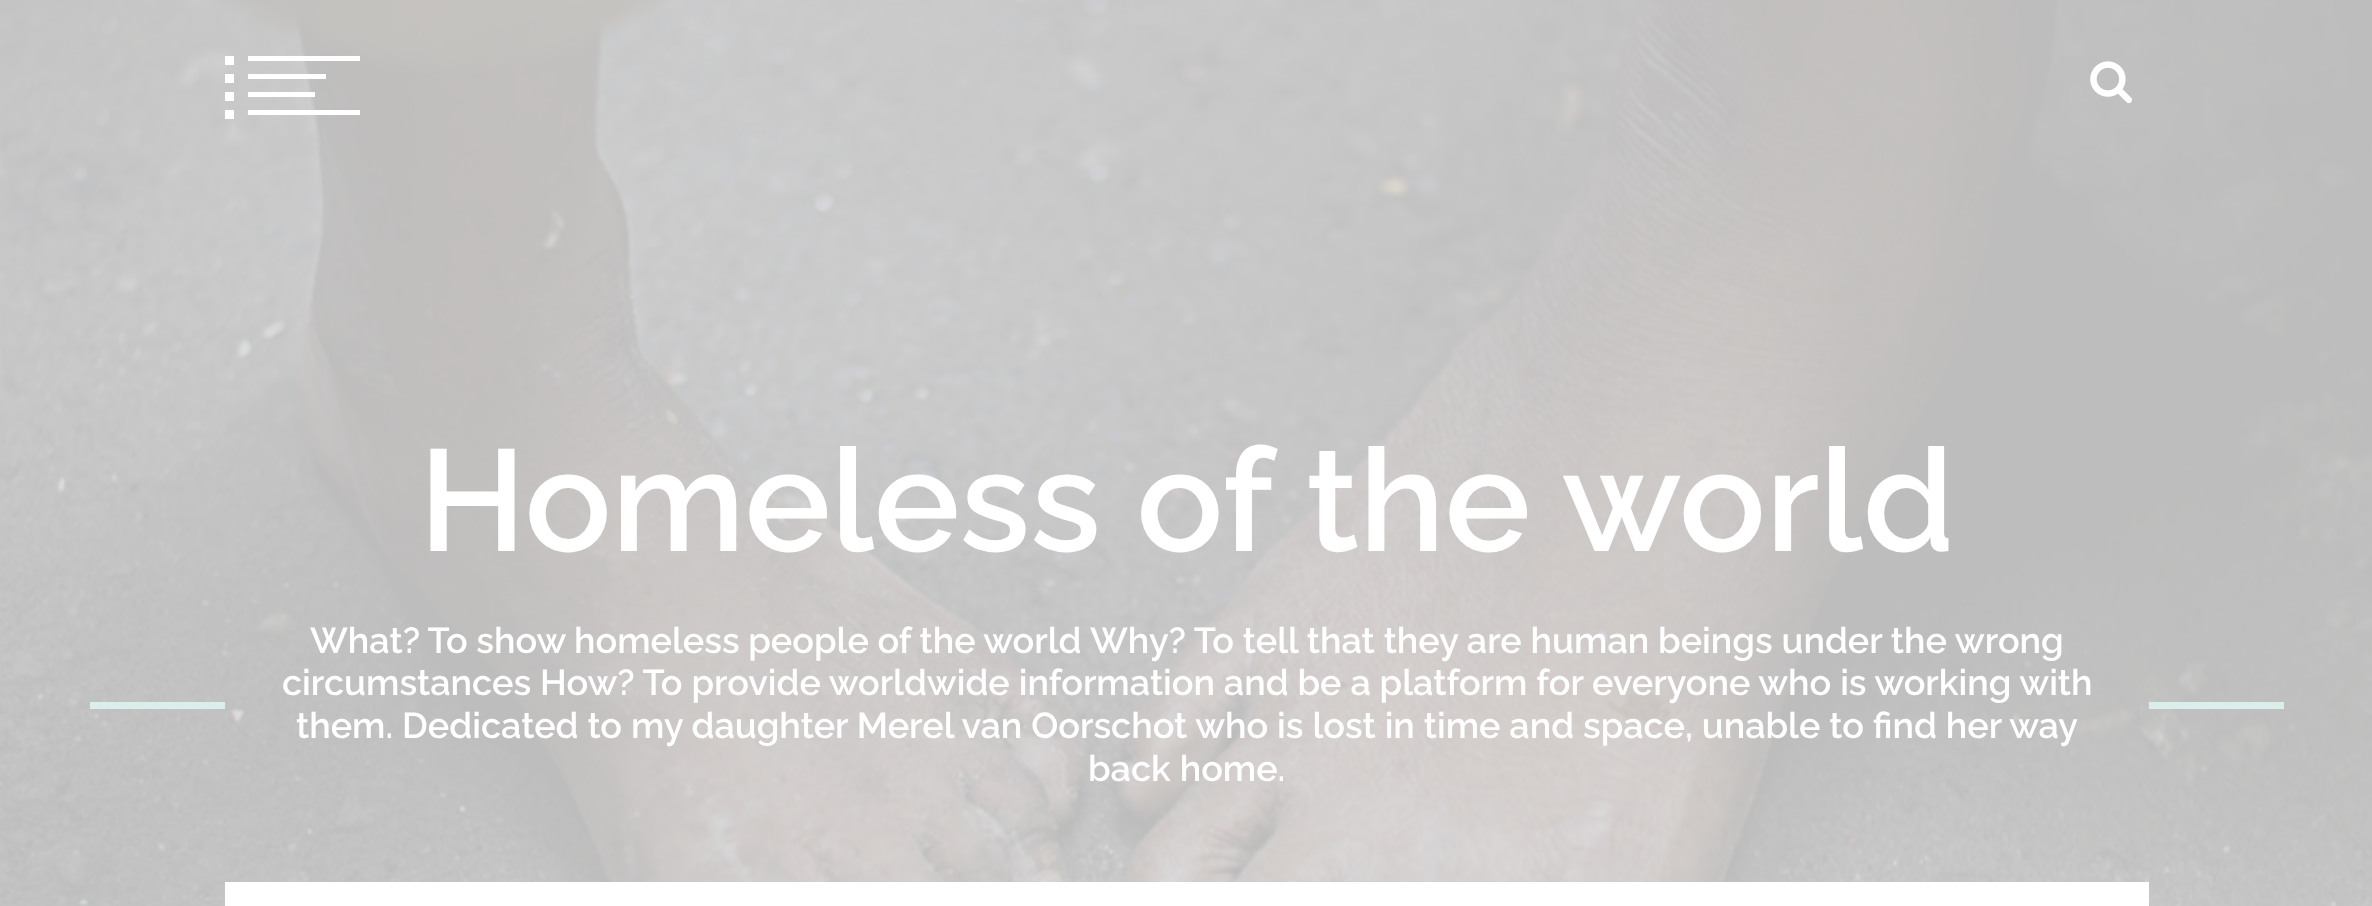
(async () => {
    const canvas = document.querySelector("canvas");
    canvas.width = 2372;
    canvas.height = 906;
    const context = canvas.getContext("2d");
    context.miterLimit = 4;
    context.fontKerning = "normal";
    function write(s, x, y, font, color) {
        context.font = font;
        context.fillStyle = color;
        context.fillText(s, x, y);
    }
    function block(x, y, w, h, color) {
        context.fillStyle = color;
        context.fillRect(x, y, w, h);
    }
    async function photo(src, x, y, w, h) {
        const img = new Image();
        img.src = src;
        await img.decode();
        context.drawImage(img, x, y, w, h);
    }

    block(0, 0, 2372, 906, "rgb(255, 255, 255)");
    await photo("media/1.png", 0, 0, 2372, 906);
    block(225, 56, 9, 9, "rgb(255, 255, 255)");
    block(248, 56, 112, 5, "rgb(255, 255, 255)");
    block(225, 74, 9, 9, "rgb(255, 255, 255)");
    block(248, 74, 78, 5, "rgb(255, 255, 255)");
    block(225, 92, 9, 9, "rgb(255, 255, 255)");
    block(248, 92, 67, 5, "rgb(255, 255, 255)");
    block(225, 110, 9, 9, "rgb(255, 255, 255)");
    block(248, 110, 112, 5, "rgb(255, 255, 255)");
    await photo("media/2.png", 2090, 61, 42, 43);
    write("Homeless of the world", 419, 551, "600 144px Raleway", "rgb(255, 255, 255)");
    context.wordSpacing = "-0.25px";
    write("What? To show homeless people of the world", 310, 653, "600 36px Raleway", "rgb(255, 255, 255)");
    context.wordSpacing = "0px";
    write("Why? To tell that they are human beings under the wrong", 1090, 653, "600 36px Raleway", "rgb(255, 255, 255)");
    write("circumstances How? To provide worldwide information and be a platform for everyone who is working with", 282, 695, "600 36px Raleway", "rgb(255, 255, 255)");
    block(90, 702, 135, 7, "rgb(218, 239, 235)");
    block(2149, 702, 135, 7, "rgb(218, 239, 235)");
    write("them. Dedicated to my daughter Merel van Oorschot who is lost in time and space, unable to find her way", 296, 738, "600 36px Raleway", "rgb(255, 255, 255)");
    write("back home.", 1088, 781, "600 36px Raleway", "rgb(255, 255, 255)");
    block(225, 882, 1924, 24, "rgb(255, 255, 255)");
})();
